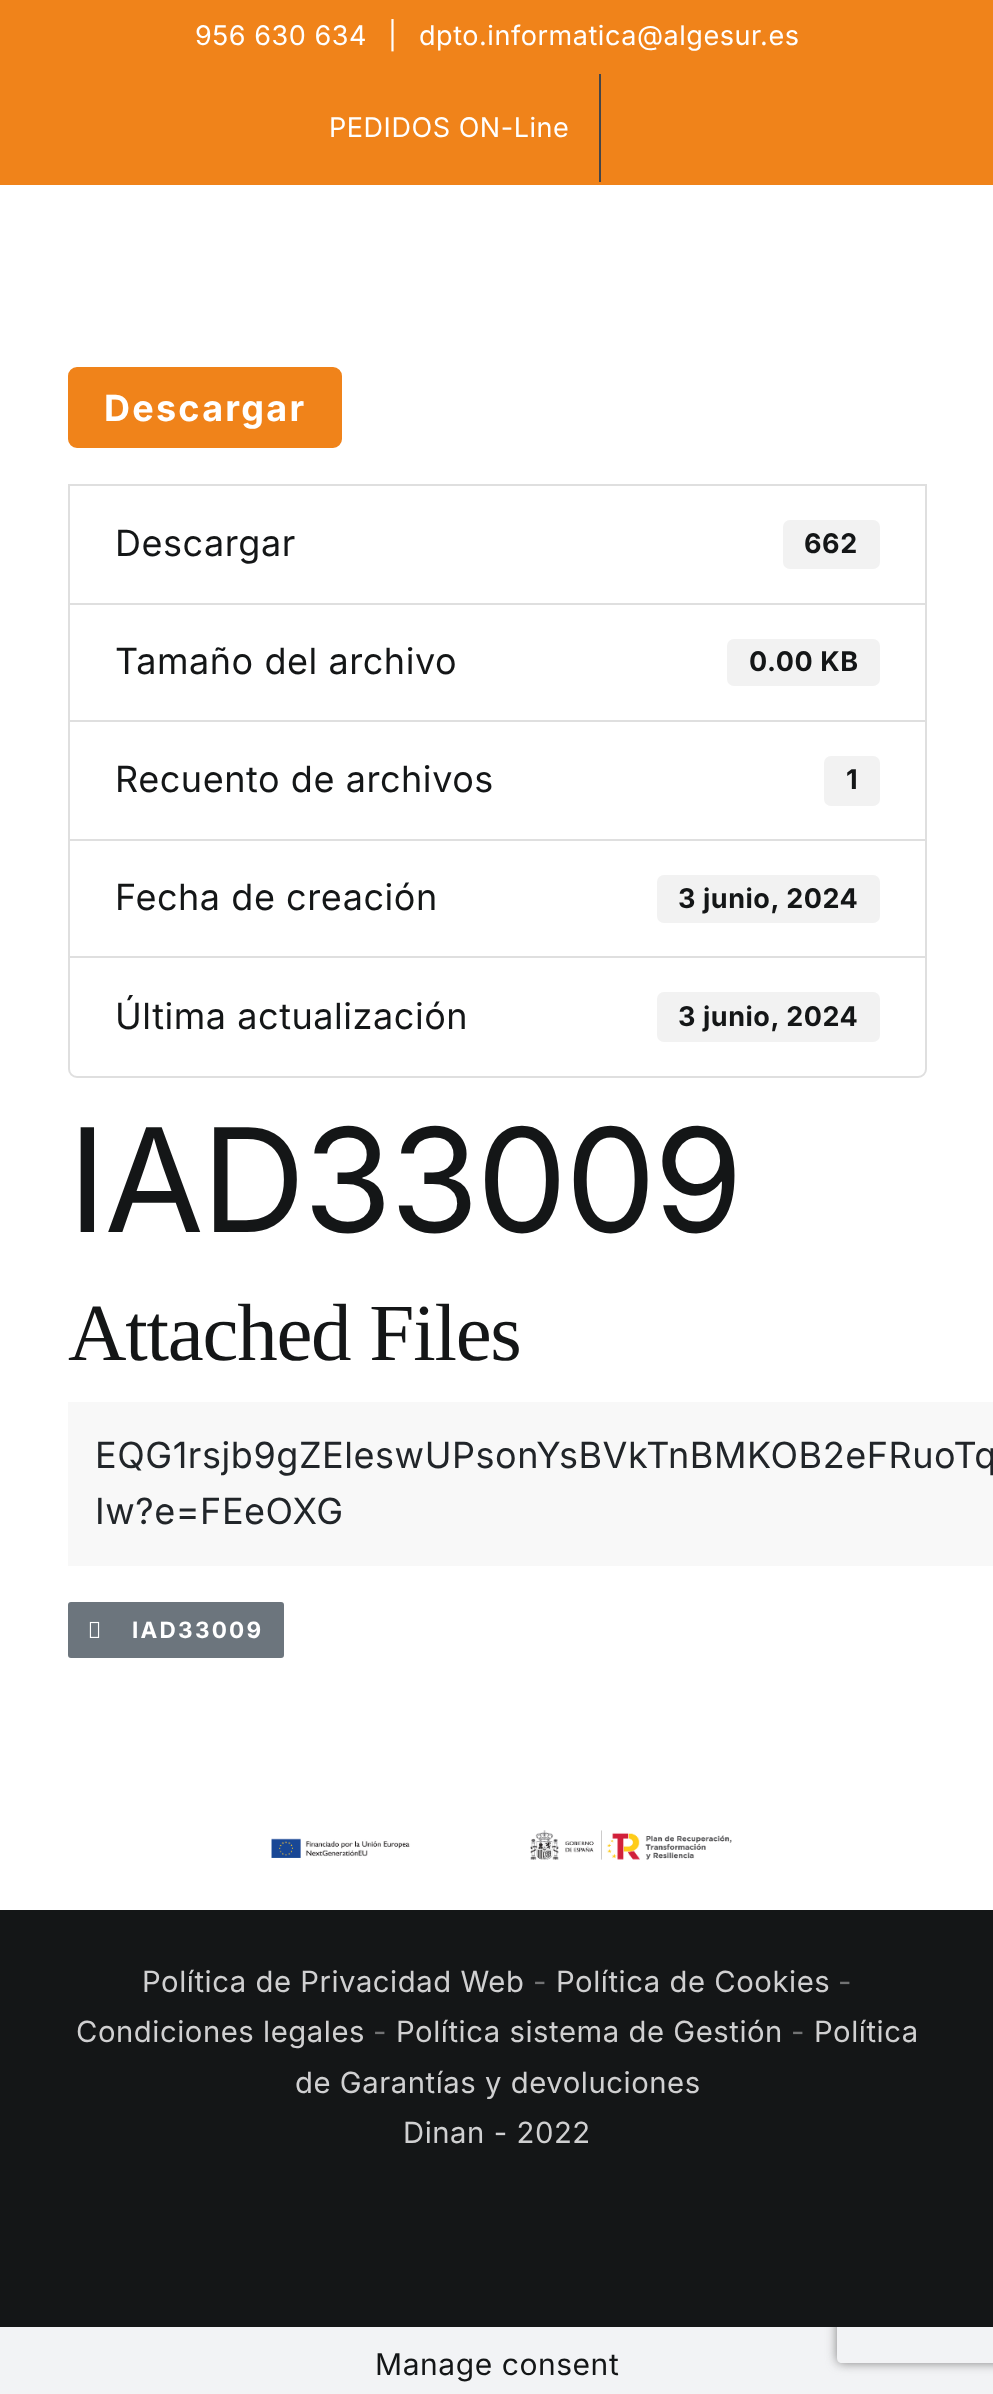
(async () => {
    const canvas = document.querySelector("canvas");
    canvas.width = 993;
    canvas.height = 2394;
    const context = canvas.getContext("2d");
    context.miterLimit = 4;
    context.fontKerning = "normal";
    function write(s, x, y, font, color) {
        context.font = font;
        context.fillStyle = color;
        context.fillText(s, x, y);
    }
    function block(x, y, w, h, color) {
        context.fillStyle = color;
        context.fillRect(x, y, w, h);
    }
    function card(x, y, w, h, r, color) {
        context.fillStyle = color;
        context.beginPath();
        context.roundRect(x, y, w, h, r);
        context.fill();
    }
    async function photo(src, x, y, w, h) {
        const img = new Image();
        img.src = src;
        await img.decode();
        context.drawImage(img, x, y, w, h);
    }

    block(0, 0, 993, 2394, "rgb(242, 243, 245)");
    block(0, 185, 993, 1725, "rgb(255, 255, 255)");
    block(0, 0, 993, 185, "rgb(240, 131, 26)");
    context.letterSpacing = "0.55px";
    write("956 630 634", 195, 45, "27px Inter", "rgb(255, 255, 255)");
    write("|", 388, 45, "27px Inter", "rgb(255, 255, 255)");
    write("dpto.informatica@algesur.es", 419, 45, "27px Inter", "rgb(255, 255, 255)");
    write("PEDIDOS ON-Line", 329, 137, "27px Inter", "rgb(255, 255, 255)");
    block(599, 74, 2, 108, "rgb(67, 69, 73)");
    context.fillStyle = "rgb(240, 131, 26)";
    context.beginPath();
    context.roundRect(69, 368, 272, 79, 8);
    context.fill();
    context.strokeStyle = "rgb(240, 131, 26)";
    context.lineWidth = 2;
    context.stroke();
    context.letterSpacing = "2.25px";
    write("Descargar", 104, 421, "bold 36px Inter", "rgb(255, 255, 255)");
    context.strokeStyle = "rgb(223, 223, 223)";
    context.strokeRect(69, 485, 857, 119);
    context.letterSpacing = "0.55px";
    write("Descargar", 115, 556, "36px Inter", "rgb(20, 22, 23)");
    card(783, 520, 97, 49, 7, "rgb(242, 242, 242)");
    write("662", 804, 553, "bold 27px Inter", "rgb(20, 22, 23)");
    context.strokeRect(69, 604, 857, 117);
    write("Tamaño del archivo", 115, 674, "36px Inter", "rgb(20, 22, 23)");
    card(727, 639, 153, 47, 7, "rgb(242, 242, 242)");
    write("0.00 KB", 749, 671, "bold 27px Inter", "rgb(20, 22, 23)");
    context.strokeRect(69, 721, 857, 120);
    write("Recuento de archivos", 115, 792, "36px Inter", "rgb(20, 22, 23)");
    card(824, 756, 56, 50, 7, "rgb(242, 242, 242)");
    write("1", 846, 789, "bold 27px Inter", "rgb(20, 22, 23)");
    block(70, 841, 855, 1, "rgb(255, 255, 255)");
    context.strokeRect(69, 840, 857, 118);
    write("Fecha de creación", 115, 910, "36px Inter", "rgb(20, 22, 23)");
    card(657, 875, 223, 48, 7, "rgb(242, 242, 242)");
    write("3 junio, 2024", 678, 908, "bold 27px Inter", "rgb(20, 22, 23)");
    context.fillStyle = "rgb(255, 255, 255)";
    context.beginPath();
    context.roundRect(69, 957, 857, 120, [0, 0, 8, 8]);
    context.fill();
    context.stroke();
    write("Última actualización", 115, 1029, "36px Inter", "rgb(20, 22, 23)");
    card(657, 992, 223, 50, 7, "rgb(242, 242, 242)");
    write("3 junio, 2024", 678, 1026, "bold 27px Inter", "rgb(20, 22, 23)");
    context.letterSpacing = "-2.25px";
    write("IAD33009", 68, 1232, "144px Inter", "rgb(20, 22, 23)");
    context.letterSpacing = "-1.25px";
    write("Attached Files", 68, 1360, "81px Liberation Serif", "rgb(20, 22, 23)");
    block(68, 1402, 925, 164, "rgb(248, 248, 248)");
    context.letterSpacing = "0.55px";
    write("EQG1rsjb9gZEleswUPsonYsBVkTnBMKOB2eFRuoTq", 95, 1468, "36px Inter", "rgb(33, 37, 41)");
    write("Iw?e=FEeOXG", 95, 1524, "36px Inter", "rgb(33, 37, 41)");
    context.fillStyle = "rgb(108, 117, 125)";
    context.beginPath();
    context.roundRect(69, 1603, 214, 54, 2);
    context.fill();
    context.strokeStyle = "rgb(108, 117, 125)";
    context.stroke();
    await photo("media/1.png", 89, 1621, 11, 17);
    context.letterSpacing = "2.25px";
    write("IAD33009", 132, 1638, "bold 22.5px Inter", "rgb(255, 255, 255)");
    await photo("media/2.png", 271, 1830, 461, 30);
    context.save();
    context.beginPath();
    context.moveTo(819, 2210);
    context.lineTo(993, 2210);
    context.lineTo(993, 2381);
    context.lineTo(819, 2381);
    context.closePath();
    context.moveTo(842, 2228);
    context.lineTo(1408, 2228);
    context.bezierCurveTo(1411, 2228, 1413, 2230, 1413, 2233);
    context.lineTo(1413, 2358);
    context.bezierCurveTo(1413, 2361, 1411, 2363, 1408, 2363);
    context.lineTo(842, 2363);
    context.bezierCurveTo(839, 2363, 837, 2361, 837, 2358);
    context.lineTo(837, 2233);
    context.bezierCurveTo(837, 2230, 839, 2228, 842, 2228);
    context.closePath();
    context.clip("evenodd");
    context.fillStyle = "rgb(128, 128, 128)";
    context.filter = "blur(5.5px)";
    context.beginPath();
    context.roundRect(837, 2228, 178, 135, 5);
    context.fill();
    context.filter = "none";
    context.restore();
    block(0, 1910, 993, 417, "rgb(20, 22, 23)");
    context.letterSpacing = "0.55px";
    write("Política de Privacidad Web", 142, 1992, "29.25px Inter", "rgb(208, 208, 209)");
    write("-", 533, 1992, "29.25px Inter", "rgb(114, 115, 116)");
    write("Política de Cookies", 556, 1992, "29.25px Inter", "rgb(208, 208, 209)");
    write("-", 838, 1992, "29.25px Inter", "rgb(114, 115, 116)");
    write("Condiciones legales", 76, 2042, "29.25px Inter", "rgb(208, 208, 209)");
    write("-", 373, 2042, "29.25px Inter", "rgb(114, 115, 116)");
    write("Política sistema de Gestión", 396, 2042, "29.25px Inter", "rgb(208, 208, 209)");
    write("-", 791, 2042, "29.25px Inter", "rgb(114, 115, 116)");
    write("Política", 814, 2042, "29.25px Inter", "rgb(208, 208, 209)");
    write("de Garantías y devoluciones", 295, 2093, "29.25px Inter", "rgb(208, 208, 209)");
    write("Dinan - 2022", 403, 2143, "29.25px Inter", "rgb(208, 208, 209)");
    write("Manage consent", 375, 2375, "30px Inter", "rgb(20, 22, 23)");
})();
